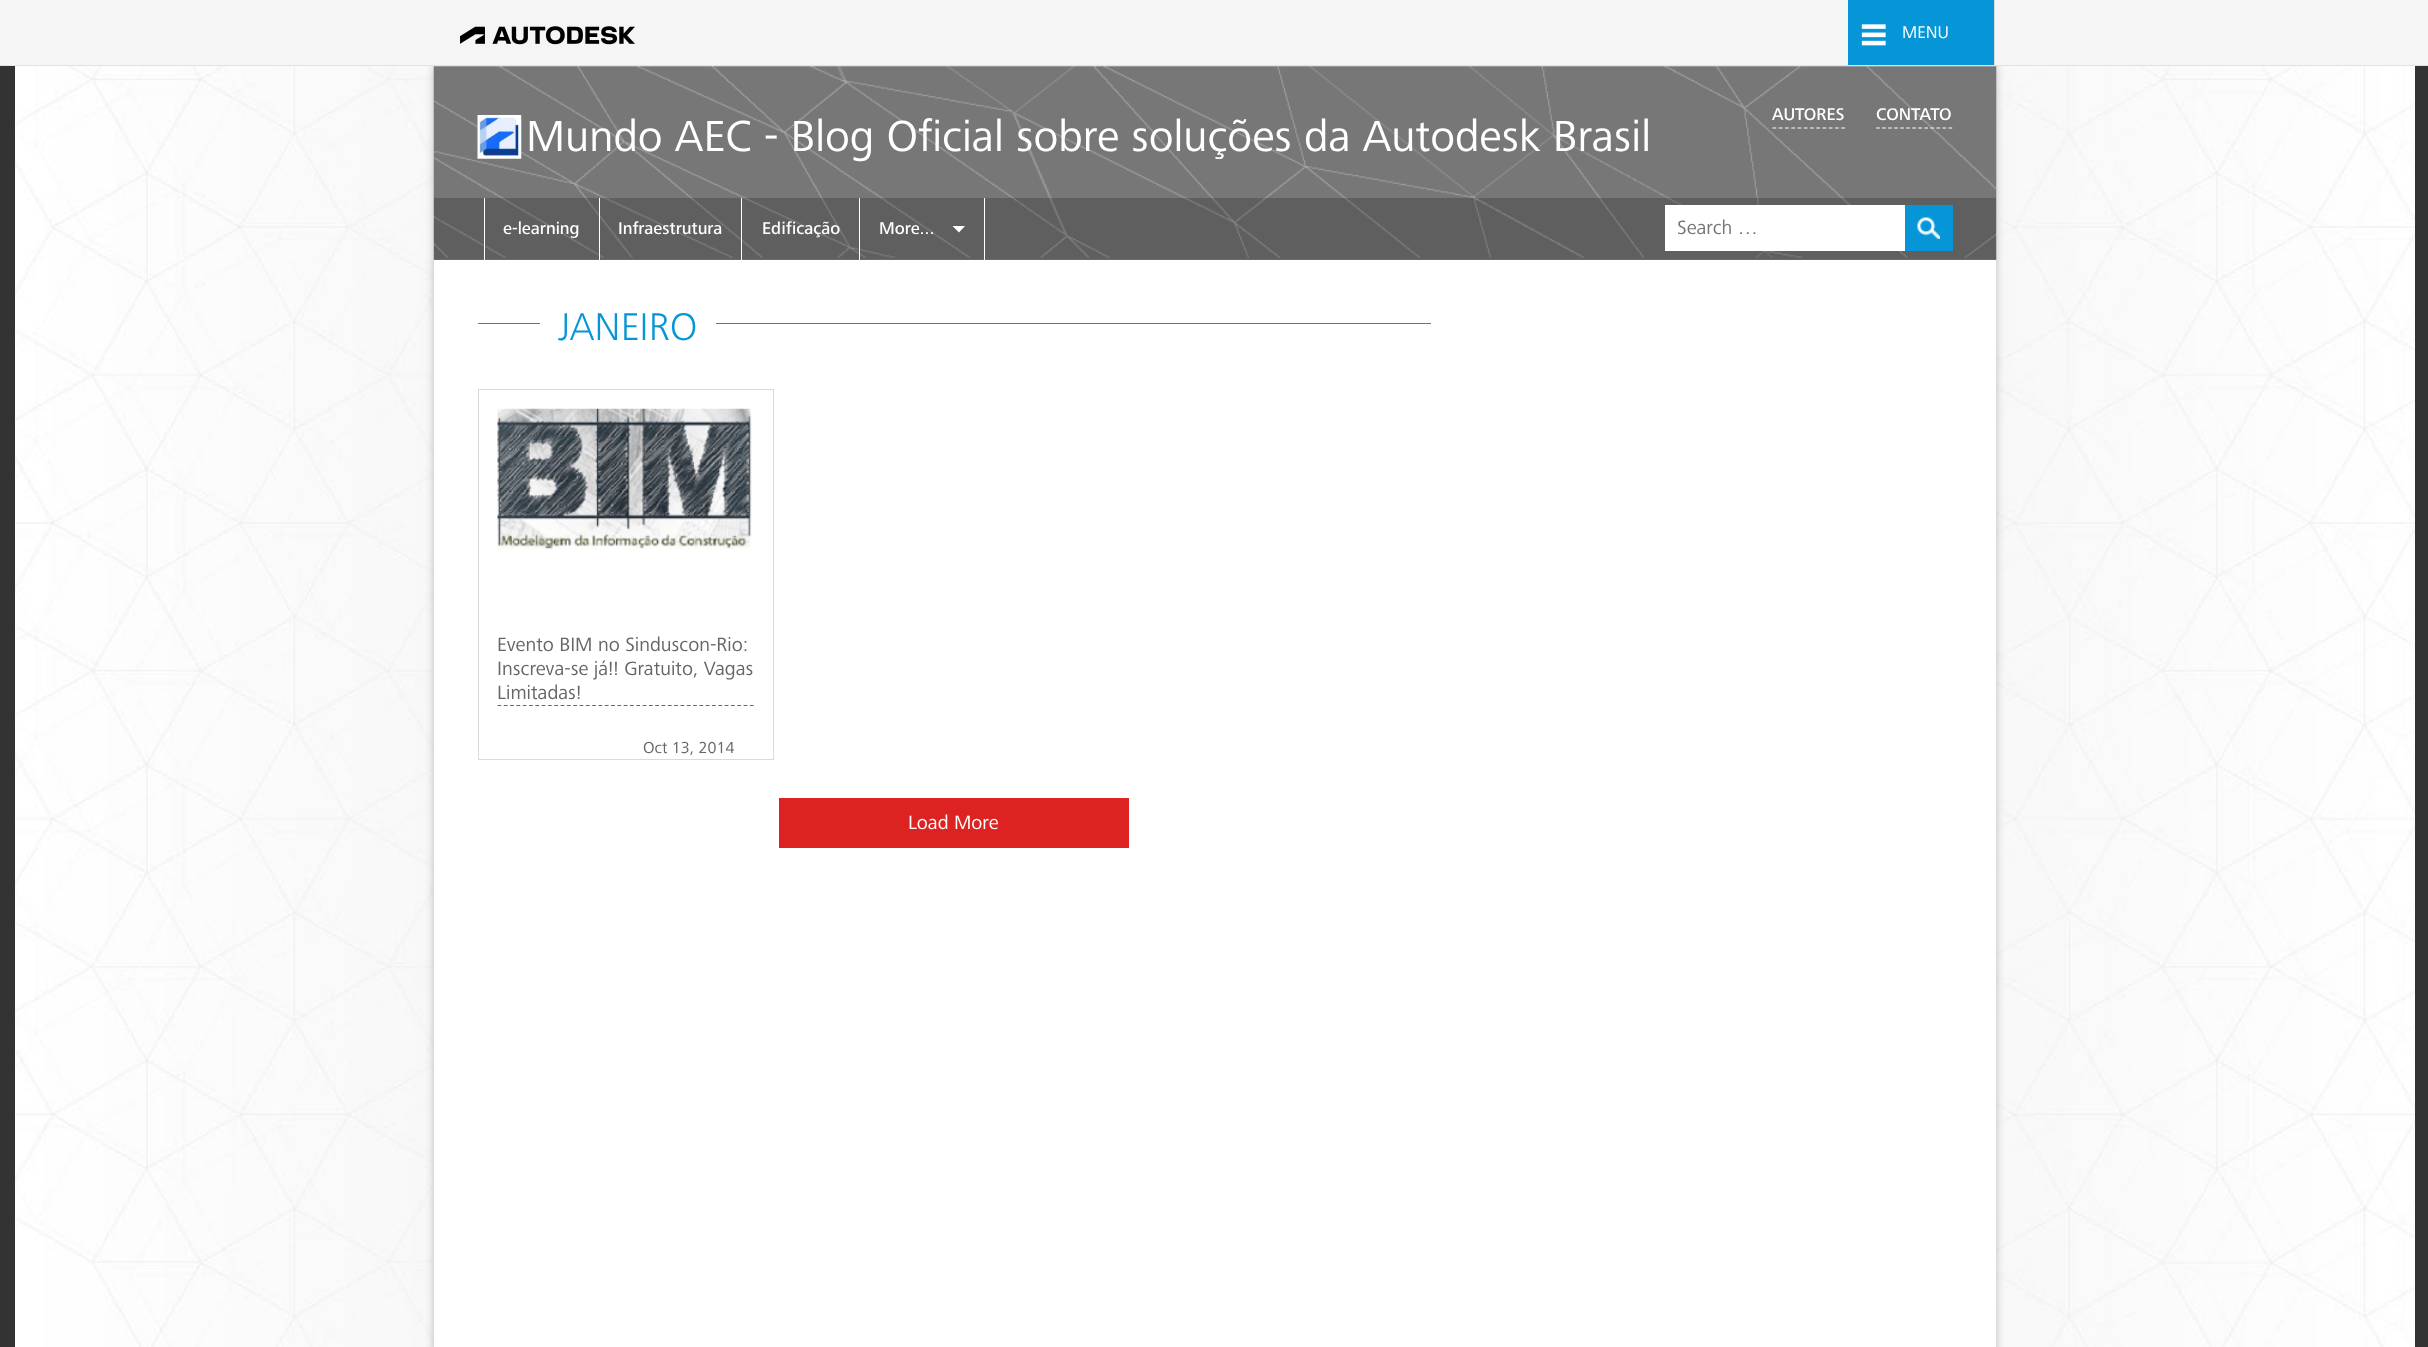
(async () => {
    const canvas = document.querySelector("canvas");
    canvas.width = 2428;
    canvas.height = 1347;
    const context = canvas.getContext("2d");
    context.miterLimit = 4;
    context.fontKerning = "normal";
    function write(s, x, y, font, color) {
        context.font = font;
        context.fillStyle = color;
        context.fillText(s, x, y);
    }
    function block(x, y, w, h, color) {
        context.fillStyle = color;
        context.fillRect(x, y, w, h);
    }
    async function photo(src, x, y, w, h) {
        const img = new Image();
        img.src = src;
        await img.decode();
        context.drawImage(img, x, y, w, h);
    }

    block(0, 0, 2428, 1347, "rgb(51, 51, 51)");
    await photo("media/1.png", 15, 66, 2400, 1281);
    context.fillStyle = "rgba(0, 0, 0, 0.25)";
    context.filter = "blur(4px)";
    context.beginPath();
    context.rect(434, 66, 1562, 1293);
    context.fill();
    context.filter = "none";
    block(0, 0, 2428, 65, "rgb(245, 245, 245)");
    block(0, 65, 2428, 1, "rgb(227, 226, 223)");
    await photo("media/2.png", 460, 26, 175, 19);
    block(1994, 0, 1, 65, "rgb(218, 218, 218)");
    block(1848, 0, 146, 65, "rgb(6, 150, 215)");
    await photo("media/3.png", 1861, 24, 25, 22);
    write("MENU", 1902, 38, "17.5px Frutiger", "rgb(255, 255, 255)");
    block(434, 66, 1562, 1281, "rgb(255, 255, 255)");
    await photo("media/4.png", 433, 66, 1564, 194);
    write("AUTORES", 1772, 120, "500 17.5px Frutiger", "rgb(255, 255, 255)");
    context.beginPath();
    context.moveTo(1772.5, 128);
    context.lineTo(1845, 128);
    context.strokeStyle = "rgb(255, 255, 255)";
    context.lineWidth = 1.2;
    context.setLineDash([3.75, 2.5]);
    context.stroke();
    write("CONTATO", 1876, 120, "500 17.5px Frutiger", "rgb(255, 255, 255)");
    context.beginPath();
    context.moveTo(1876, 128);
    context.lineTo(1952.5, 128);
    context.setLineDash([3.75, 2.29]);
    context.stroke();
    await photo("media/5.png", 477, 115, 45, 44);
    write("Mundo AEC - Blog Oficial sobre soluções da Autodesk Brasil", 526, 151, "45px Frutiger", "rgb(255, 255, 255)");
    block(434, 198, 1562, 62, "rgba(0, 0, 0, 0.2)");
    block(599, 198, 1, 62, "rgb(255, 255, 255)");
    block(484, 198, 1, 62, "rgb(255, 255, 255)");
    write("e-learning", 503, 234, "500 17.5px Frutiger", "rgb(255, 255, 255)");
    block(741, 198, 1, 62, "rgb(255, 255, 255)");
    write("Infraestrutura", 618, 234, "500 17.5px Frutiger", "rgb(255, 255, 255)");
    block(859, 198, 1, 62, "rgb(255, 255, 255)");
    write("Edificação", 762, 234, "500 17.5px Frutiger", "rgb(255, 255, 255)");
    block(984, 198, 1, 62, "rgb(255, 255, 255)");
    write("More...", 879, 234, "500 17.5px Frutiger", "rgb(255, 255, 255)");
    context.beginPath();
    context.moveTo(952.5, 226);
    context.lineTo(965, 226);
    context.lineTo(959, 232.5);
    context.closePath();
    context.fill();
    block(1665, 205, 240, 46, "rgb(255, 255, 255)");
    write("Search …", 1677, 234, "20px Frutiger", "rgb(117, 117, 117)");
    block(1905, 205, 48, 46, "rgb(6, 150, 215)");
    await photo("media/6.png", 1917, 217, 23, 22);
    block(478, 323, 953, 1, "rgb(6, 150, 215)");
    block(540, 323, 176, 1, "rgb(255, 255, 255)");
    write("JANEIRO", 558, 340, "300 40px Frutiger", "rgb(6, 150, 215)");
    context.strokeStyle = "rgb(218, 218, 218)";
    context.lineWidth = 1;
    context.setLineDash([]);
    context.strokeRect(478.5, 389.5, 295, 370);
    await photo("media/7.png", 497, 408, 255, 142);
    write("Evento BIM no Sinduscon-Rio:", 497, 651, "20px Frutiger", "rgb(102, 102, 102)");
    write("Inscreva-se já!! Gratuito, Vagas", 497, 675, "20px Frutiger", "rgb(102, 102, 102)");
    write("Limitadas!", 497, 699, "20px Frutiger", "rgb(102, 102, 102)");
    context.beginPath();
    context.moveTo(497.5, 705.5);
    context.lineTo(754, 705.5);
    context.strokeStyle = "rgb(102, 102, 102)";
    context.lineWidth = 1.2;
    context.setLineDash([3.75, 2.56]);
    context.stroke();
    write("Oct 13, 2014", 643, 753, "16.5px Frutiger", "rgb(102, 102, 102)");
    block(779, 798, 350, 50, "rgb(221, 34, 34)");
    write("Load More", 908, 829, "20px Frutiger", "rgb(255, 255, 255)");
})();
